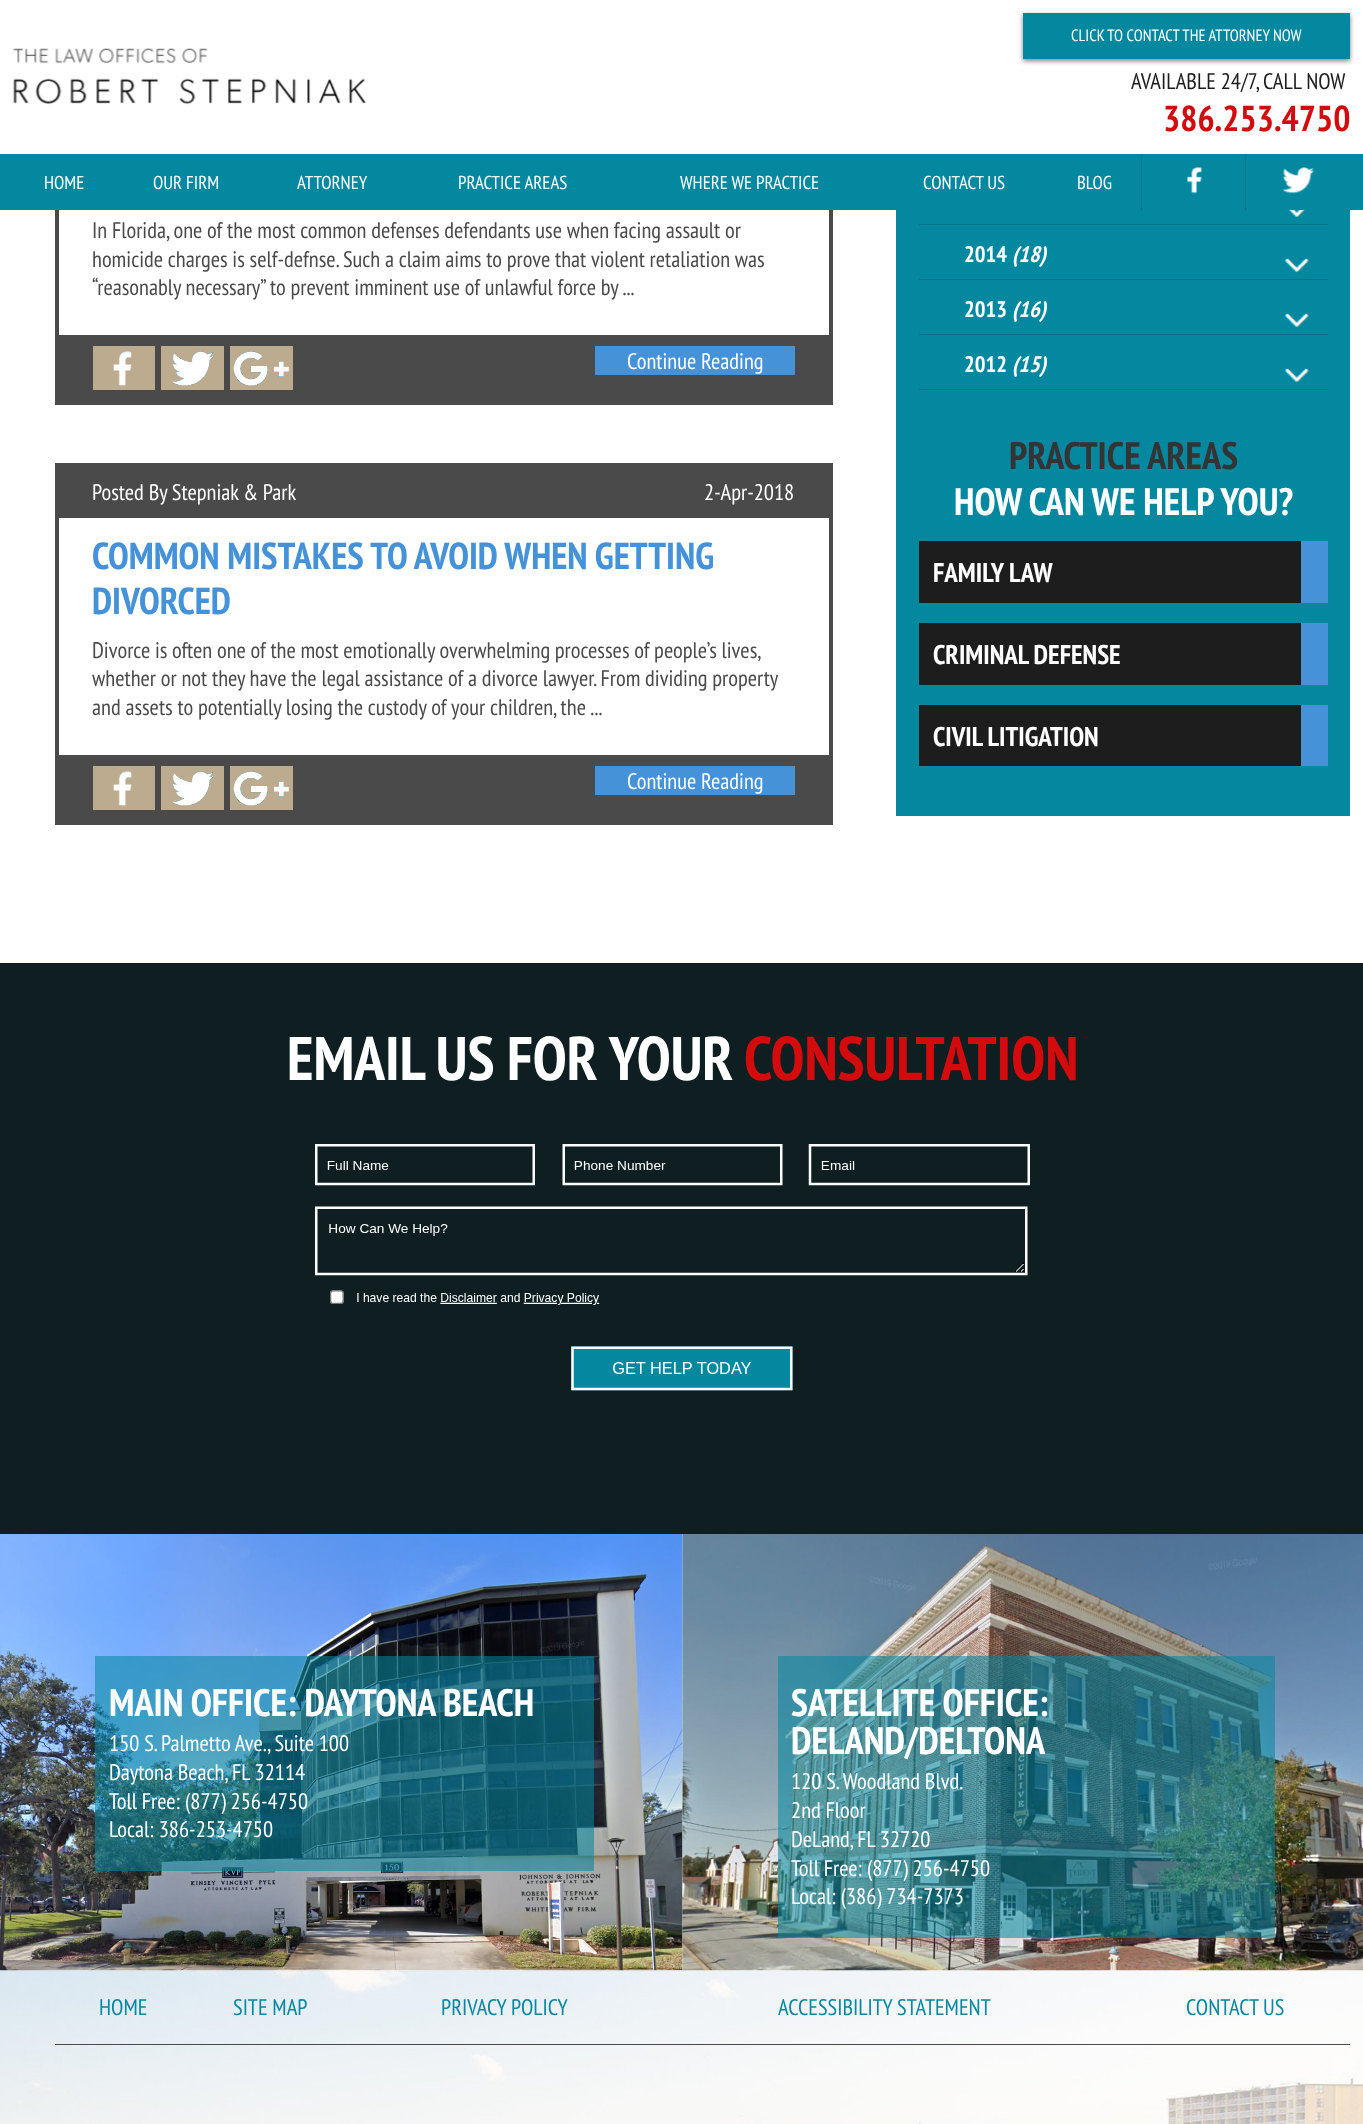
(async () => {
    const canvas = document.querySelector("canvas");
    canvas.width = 1363;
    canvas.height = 2124;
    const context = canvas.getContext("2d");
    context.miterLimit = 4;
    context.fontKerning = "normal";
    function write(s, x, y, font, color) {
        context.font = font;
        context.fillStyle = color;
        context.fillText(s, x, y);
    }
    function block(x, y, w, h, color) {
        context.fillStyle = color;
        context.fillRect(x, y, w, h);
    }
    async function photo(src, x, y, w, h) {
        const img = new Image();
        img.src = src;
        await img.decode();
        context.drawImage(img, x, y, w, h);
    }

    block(0, 0, 1363, 2124, "rgb(255, 255, 255)");
    context.strokeStyle = "rgb(74, 74, 74)";
    context.lineWidth = 4;
    context.strokeRect(57, 91, 774, 312);
    block(55, 89, 778, 65, "rgb(255, 255, 255)");
    await photo("media/1.png", 13, 48, 353, 57);
    context.fillStyle = "rgba(0, 0, 0, 0.5)";
    context.filter = "blur(2.5px)";
    context.beginPath();
    context.rect(1023, 15, 327, 46);
    context.fill();
    context.filter = "none";
    block(1023, 13, 327, 46, "rgb(4, 136, 160)");
    write("CLICK TO CONTACT THE ATTORNEY NOW", 1071, 41, "16.4px PT Sans Narrow", "rgb(255, 255, 255)");
    write("AVAILABLE 24/7, CALL NOW", 1131, 89, "22.5px PT Sans Narrow", "rgb(29, 29, 29)");
    write("386.253.4750", 1163, 131, "bold 36px PT Sans Narrow", "rgb(212, 11, 12)");
    block(0, 154, 1363, 56, "rgb(4, 136, 160)");
    write("HOME", 44, 189, "18.75px PT Sans Narrow", "rgb(255, 255, 255)");
    write("OUR FIRM", 153, 189, "18.75px PT Sans Narrow", "rgb(255, 255, 255)");
    write("ATTORNEY", 297, 189, "18.75px PT Sans Narrow", "rgb(255, 255, 255)");
    write("PRACTICE AREAS", 458, 189, "18.75px PT Sans Narrow", "rgb(255, 255, 255)");
    write("WHERE WE PRACTICE", 680, 189, "18.75px PT Sans Narrow", "rgb(255, 255, 255)");
    write("CONTACT US", 923, 189, "18.75px PT Sans Narrow", "rgb(255, 255, 255)");
    write("BLOG", 1077, 189, "18.75px PT Sans Narrow", "rgb(255, 255, 255)");
    block(1141, 154, 1, 56, "rgb(9, 115, 134)");
    await photo("media/2.png", 1187, 167, 15, 27);
    block(1245, 154, 1, 56, "rgb(9, 115, 134)");
    await photo("media/3.png", 1282, 167, 33, 27);
    write("In Florida, one of the most common defenses defendants use when facing assault or", 92, 238, "22.5px PT Sans Narrow", "rgb(74, 74, 74)");
    write("homicide charges is self-defnse. Such a claim aims to prove that violent retaliation was", 92, 267, "22.5px PT Sans Narrow", "rgb(74, 74, 74)");
    write("“reasonably necessary” to prevent imminent use of unlawful force by ...", 92, 295, "22.5px PT Sans Narrow", "rgb(74, 74, 74)");
    block(59, 335, 770, 66, "rgb(74, 74, 74)");
    block(93, 346, 62, 44, "rgb(188, 171, 142)");
    await photo("media/4.png", 113, 351, 19, 35);
    block(161, 346, 63, 44, "rgb(188, 171, 142)");
    await photo("media/5.png", 172, 351, 42, 35);
    block(230, 346, 63, 44, "rgb(188, 171, 142)");
    await photo("media/6.png", 233, 351, 56, 35);
    block(595, 346, 200, 29, "rgb(69, 146, 216)");
    write("Continue Reading", 627, 369, "22.5px PT Sans Narrow", "rgb(255, 255, 255)");
    context.strokeRect(57, 465, 774, 358);
    block(59, 467, 770, 51, "rgb(74, 74, 74)");
    write("Posted By Stepniak & Park", 92, 500, "22.5px PT Sans Narrow", "rgb(255, 255, 255)");
    write("2-Apr-2018", 704, 500, "22.5px PT Sans Narrow", "rgb(255, 255, 255)");
    write("COMMON MISTAKES TO AVOID WHEN GETTING", 92, 569, "bold 37.5px PT Sans Narrow", "rgb(69, 146, 216)");
    write("DIVORCED", 92, 614, "bold 37.5px PT Sans Narrow", "rgb(69, 146, 216)");
    context.wordSpacing = "-0.1px";
    write("Divorce is often one of the most emotionally overwhelming processes of people’s lives,", 92, 658, "22.5px PT Sans Narrow", "rgb(74, 74, 74)");
    context.wordSpacing = "0px";
    write("whether or not they have the legal assistance of a divorce lawyer. From dividing property", 92, 686, "22.5px PT Sans Narrow", "rgb(74, 74, 74)");
    write("and assets to potentially losing the custody of your children, the ...", 92, 715, "22.5px PT Sans Narrow", "rgb(74, 74, 74)");
    block(59, 755, 770, 66, "rgb(74, 74, 74)");
    block(93, 766, 62, 44, "rgb(188, 171, 142)");
    await photo("media/4.png", 113, 771, 19, 35);
    block(161, 766, 63, 44, "rgb(188, 171, 142)");
    await photo("media/7.png", 172, 771, 42, 35);
    block(230, 766, 63, 44, "rgb(188, 171, 142)");
    await photo("media/6.png", 233, 771, 56, 35);
    block(595, 766, 200, 29, "rgb(69, 146, 216)");
    write("Continue Reading", 627, 789, "22.5px PT Sans Narrow", "rgb(255, 255, 255)");
    block(896, 210, 454, 606, "rgb(4, 136, 160)");
    await photo("media/8.png", 1285, 210, 24, 8);
    block(919, 224, 409, 1, "rgb(9, 115, 134)");
    block(919, 279, 409, 1, "rgb(9, 115, 134)");
    write("2014", 964, 262, "bold 22.5px PT Sans Narrow", "rgb(255, 255, 255)");
    write("(18)", 1012, 262, "italic bold 22.5px PT Sans Narrow", "rgb(255, 255, 255)");
    await photo("media/9.png", 1285, 257, 24, 16);
    block(919, 334, 409, 1, "rgb(9, 115, 134)");
    write("2013", 964, 317, "bold 22.5px PT Sans Narrow", "rgb(255, 255, 255)");
    write("(16)", 1012, 317, "italic bold 22.5px PT Sans Narrow", "rgb(255, 255, 255)");
    await photo("media/10.png", 1285, 312, 24, 16);
    block(919, 389, 409, 1, "rgb(9, 115, 134)");
    write("2012", 964, 372, "bold 22.5px PT Sans Narrow", "rgb(255, 255, 255)");
    write("(15)", 1012, 372, "italic bold 22.5px PT Sans Narrow", "rgb(255, 255, 255)");
    await photo("media/9.png", 1285, 367, 24, 16);
    write("PRACTICE AREAS", 1009, 469, "bold 38.25px PT Sans Narrow", "rgb(52, 52, 52)");
    write("HOW CAN WE HELP YOU?", 954, 515, "bold 38.25px PT Sans Narrow", "rgb(255, 255, 255)");
    block(919, 541, 382, 62, "rgb(29, 29, 29)");
    block(1301, 541, 27, 62, "rgb(69, 146, 216)");
    write("FAMILY LAW", 933, 582, "bold 27px PT Sans Narrow", "rgb(255, 255, 255)");
    block(919, 623, 382, 62, "rgb(29, 29, 29)");
    block(1301, 623, 27, 62, "rgb(69, 146, 216)");
    write("CRIMINAL DEFENSE", 933, 664, "bold 27px PT Sans Narrow", "rgb(255, 255, 255)");
    block(919, 705, 382, 61, "rgb(29, 29, 29)");
    block(1301, 705, 27, 61, "rgb(69, 146, 216)");
    write("CIVIL LITIGATION", 933, 746, "bold 27px PT Sans Narrow", "rgb(255, 255, 255)");
    block(0, 963, 1363, 571, "rgb(15, 31, 33)");
    write("EMAIL US FOR YOUR", 287, 1080, "bold 61.5px PT Sans Narrow", "rgb(255, 255, 255)");
    write("CONSULTATION", 744, 1080, "bold 61.5px PT Sans Narrow", "rgb(212, 11, 12)");
    await photo("media/11.png", 315, 1144, 715, 247);
    await photo("media/14.png", 0, 1970, 1363, 154);
    await photo("media/12.png", 0, 1534, 683, 437);
    block(95, 1656, 499, 215, "rgba(4, 136, 160, 0.56)");
    write("MAIN OFFICE: DAYTONA BEACH", 109, 1716, "bold 38.25px PT Sans Narrow", "rgb(255, 255, 255)");
    write("150 S. Palmetto Ave., Suite 100", 109, 1751, "22.5px PT Sans Narrow", "rgb(255, 255, 255)");
    write("Daytona Beach, FL 32114", 109, 1780, "22.5px PT Sans Narrow", "rgb(255, 255, 255)");
    write("Toll Free: (877) 256-4750", 109, 1809, "22.5px PT Sans Narrow", "rgb(255, 255, 255)");
    write("Local: 386-253-4750", 109, 1837, "22.5px PT Sans Narrow", "rgb(255, 255, 255)");
    await photo("media/13.png", 682, 1534, 681, 437);
    block(778, 1656, 497, 282, "rgba(4, 136, 160, 0.56)");
    write("SATELLITE OFFICE:", 791, 1716, "bold 38.25px PT Sans Narrow", "rgb(255, 255, 255)");
    write("DELAND/DELTONA", 791, 1754, "bold 38.25px PT Sans Narrow", "rgb(255, 255, 255)");
    write("120 S. Woodland Blvd.", 791, 1789, "22.5px PT Sans Narrow", "rgb(255, 255, 255)");
    write("2nd Floor", 791, 1818, "22.5px PT Sans Narrow", "rgb(255, 255, 255)");
    write("DeLand, FL 32720", 791, 1847, "22.5px PT Sans Narrow", "rgb(255, 255, 255)");
    write("Toll Free: (877) 256-4750", 791, 1876, "22.5px PT Sans Narrow", "rgb(255, 255, 255)");
    write("Local: (386) 734-7373", 791, 1904, "22.5px PT Sans Narrow", "rgb(255, 255, 255)");
    block(55, 2044, 1295, 1, "rgb(74, 74, 74)");
    write("HOME", 99, 2015, "22.5px PT Sans Narrow", "rgb(4, 136, 160)");
    write("SITE MAP", 233, 2015, "22.5px PT Sans Narrow", "rgb(4, 136, 160)");
    write("PRIVACY POLICY", 441, 2015, "22.5px PT Sans Narrow", "rgb(4, 136, 160)");
    write("ACCESSIBILITY STATEMENT", 778, 2015, "22.5px PT Sans Narrow", "rgb(4, 136, 160)");
    write("CONTACT US", 1186, 2015, "22.5px PT Sans Narrow", "rgb(4, 136, 160)");
})();
